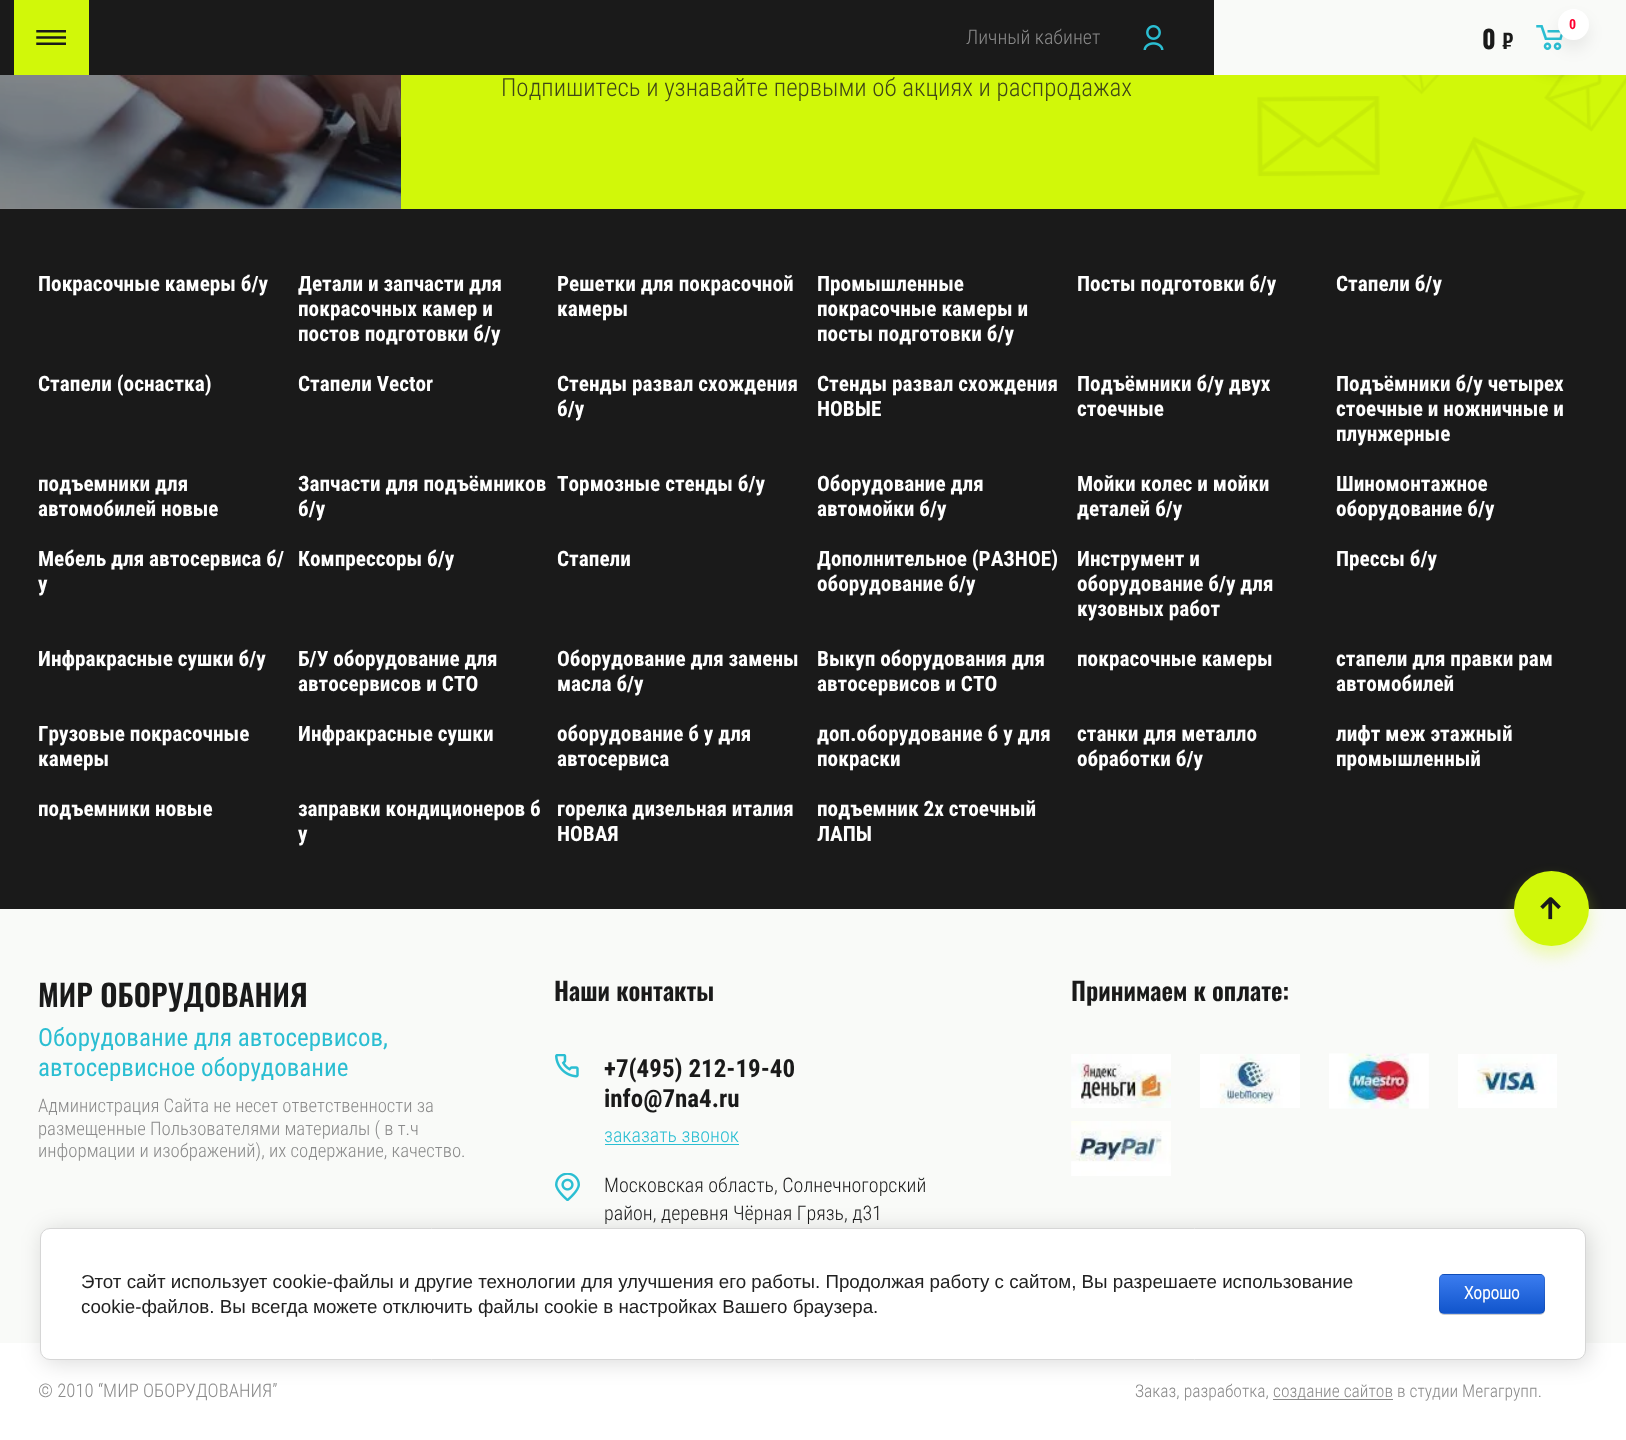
(async () => {
    const canvas = document.querySelector("canvas");
    canvas.width = 1626;
    canvas.height = 1440;
    const context = canvas.getContext("2d");
    context.miterLimit = 4;
    context.fontKerning = "normal";
    function write(s, x, y, font, color) {
        context.font = font;
        context.fillStyle = color;
        context.fillText(s, x, y);
    }
    function block(x, y, w, h, color) {
        context.fillStyle = color;
        context.fillRect(x, y, w, h);
    }
    async function photo(src, x, y, w, h) {
        const img = new Image();
        img.src = src;
        await img.decode();
        context.drawImage(img, x, y, w, h);
    }
    let gradient;

    block(0, 0, 1626, 1440, "rgb(255, 255, 255)");
    block(0, 208, 401, 1, "rgb(141, 141, 141)");
    block(0, 0, 1214, 75, "rgb(26, 26, 26)");
    block(401, 75, 1225, 134, "rgb(209, 248, 9)");
    await photo("media/4.png", 1257, 75, 369, 134);
    context.fillStyle = "rgba(26, 26, 26, 0.32)";
    context.filter = "blur(8px)";
    context.beginPath();
    context.roundRect(1526, 6, 63, 63, 31.5);
    context.fill();
    context.filter = "none";
    block(1214, 0, 412, 75, "rgb(249, 250, 248)");
    block(14, 0, 75, 75, "rgb(209, 248, 9)");
    await photo("media/1.png", 36, 30, 30, 15);
    write("Личный кабинет", 966, 44, "300 20px Roboto Condensed", "rgb(138, 138, 138)");
    await photo("media/2.png", 1143, 25, 21, 25);
    write("0", 1482, 49, "bold 25px Oswald", "rgb(26, 26, 26)");
    write("₽", 1502, 49, "bold 20px 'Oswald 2'", "rgb(26, 26, 26)");
    await photo("media/3.png", 1536, 25, 27, 25);
    context.fillStyle = "rgba(0, 0, 0, 0.07)";
    context.filter = "blur(8px)";
    context.beginPath();
    context.roundRect(1558, 18, 31, 31, 15.5);
    context.fill();
    context.filter = "none";
    context.fillStyle = "rgb(255, 255, 255)";
    context.beginPath();
    context.arc(1573.5, 24.5, 15.5, 0, Math.PI * 2);
    context.fill();
    write("0", 1569, 29, "bold 14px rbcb", "rgb(255, 0, 48)");
    await photo("media/5.png", 0, 75, 401, 134);
    write("Подпишитесь и узнавайте первыми об акциях и распродажах", 501, 96, "300 25px Roboto Condensed", "rgb(63, 70, 23)");
    block(0, 209, 1626, 700, "rgb(26, 26, 26)");
    write("Покрасочные камеры б/у", 38, 291, "bold 21.25px rbcb", "rgb(255, 255, 255)");
    write("Детали и запчасти для", 298, 291, "bold 21.25px rbcb", "rgb(255, 255, 255)");
    write("покрасочных камер и", 298, 316, "bold 21.25px rbcb", "rgb(255, 255, 255)");
    write("постов подготовки б/у", 298, 341, "bold 21.25px rbcb", "rgb(255, 255, 255)");
    write("Решетки для покрасочной", 557, 291, "bold 21.25px rbcb", "rgb(255, 255, 255)");
    write("камеры", 557, 316, "bold 21.25px rbcb", "rgb(255, 255, 255)");
    write("Промышленные", 817, 291, "bold 21.25px rbcb", "rgb(255, 255, 255)");
    write("покрасочные камеры и", 817, 316, "bold 21.25px rbcb", "rgb(255, 255, 255)");
    write("посты подготовки б/у", 817, 341, "bold 21.25px rbcb", "rgb(255, 255, 255)");
    write("Посты подготовки б/у", 1077, 291, "bold 21.25px rbcb", "rgb(255, 255, 255)");
    write("Стапели б/у", 1336, 291, "bold 21.25px rbcb", "rgb(255, 255, 255)");
    write("Стапели (оснастка)", 38, 391, "bold 21.25px rbcb", "rgb(255, 255, 255)");
    write("Стапели Vector", 298, 391, "bold 21.25px rbcb", "rgb(255, 255, 255)");
    write("Стенды развал схождения", 557, 391, "bold 21.25px rbcb", "rgb(255, 255, 255)");
    write("б/у", 557, 416, "bold 21.25px rbcb", "rgb(255, 255, 255)");
    write("Стенды развал схождения", 817, 391, "bold 21.25px rbcb", "rgb(255, 255, 255)");
    write("НОВЫЕ", 817, 416, "bold 21.25px rbcb", "rgb(255, 255, 255)");
    write("Подъёмники б/у двух", 1077, 391, "bold 21.25px rbcb", "rgb(255, 255, 255)");
    write("стоечные", 1077, 416, "bold 21.25px rbcb", "rgb(255, 255, 255)");
    write("Подъёмники б/у четырех", 1336, 391, "bold 21.25px rbcb", "rgb(255, 255, 255)");
    write("стоечные и ножничные и", 1336, 416, "bold 21.25px rbcb", "rgb(255, 255, 255)");
    write("плунжерные", 1336, 441, "bold 21.25px rbcb", "rgb(255, 255, 255)");
    write("подъемники для", 38, 491, "bold 21.25px rbcb", "rgb(255, 255, 255)");
    write("автомобилей новые", 38, 516, "bold 21.25px rbcb", "rgb(255, 255, 255)");
    write("Запчасти для подъёмников", 298, 491, "bold 21.25px rbcb", "rgb(255, 255, 255)");
    write("б/у", 298, 516, "bold 21.25px rbcb", "rgb(255, 255, 255)");
    write("Тормозные стенды б/у", 557, 491, "bold 21.25px rbcb", "rgb(255, 255, 255)");
    write("Оборудование для", 817, 491, "bold 21.25px rbcb", "rgb(255, 255, 255)");
    write("автомойки б/у", 817, 516, "bold 21.25px rbcb", "rgb(255, 255, 255)");
    write("Мойки колес и мойки", 1077, 491, "bold 21.25px rbcb", "rgb(255, 255, 255)");
    write("деталей б/у", 1077, 516, "bold 21.25px rbcb", "rgb(255, 255, 255)");
    write("Шиномонтажное", 1336, 491, "bold 21.25px rbcb", "rgb(255, 255, 255)");
    write("оборудование б/у", 1336, 516, "bold 21.25px rbcb", "rgb(255, 255, 255)");
    write("Мебель для автосервиса б/", 38, 566, "bold 21.25px rbcb", "rgb(255, 255, 255)");
    write("у", 38, 591, "bold 21.25px rbcb", "rgb(255, 255, 255)");
    write("Компрессоры б/у", 298, 566, "bold 21.25px rbcb", "rgb(255, 255, 255)");
    write("Стапели", 557, 566, "bold 21.25px rbcb", "rgb(255, 255, 255)");
    write("Дополнительное (РАЗНОЕ)", 817, 566, "bold 21.25px rbcb", "rgb(255, 255, 255)");
    write("оборудование б/у", 817, 591, "bold 21.25px rbcb", "rgb(255, 255, 255)");
    write("Инструмент и", 1077, 566, "bold 21.25px rbcb", "rgb(255, 255, 255)");
    write("оборудование б/у для", 1077, 591, "bold 21.25px rbcb", "rgb(255, 255, 255)");
    write("кузовных работ", 1077, 616, "bold 21.25px rbcb", "rgb(255, 255, 255)");
    write("Прессы б/у", 1336, 566, "bold 21.25px rbcb", "rgb(255, 255, 255)");
    write("Инфракрасные сушки б/у", 38, 666, "bold 21.25px rbcb", "rgb(255, 255, 255)");
    write("Б/У оборудование для", 298, 666, "bold 21.25px rbcb", "rgb(255, 255, 255)");
    write("автосервисов и СТО", 298, 691, "bold 21.25px rbcb", "rgb(255, 255, 255)");
    write("Оборудование для замены", 557, 666, "bold 21.25px rbcb", "rgb(255, 255, 255)");
    write("масла б/у", 557, 691, "bold 21.25px rbcb", "rgb(255, 255, 255)");
    write("Выкуп оборудования для", 817, 666, "bold 21.25px rbcb", "rgb(255, 255, 255)");
    write("автосервисов и СТО", 817, 691, "bold 21.25px rbcb", "rgb(255, 255, 255)");
    write("покрасочные камеры", 1077, 666, "bold 21.25px rbcb", "rgb(255, 255, 255)");
    write("стапели для правки рам", 1336, 666, "bold 21.25px rbcb", "rgb(255, 255, 255)");
    write("автомобилей", 1336, 691, "bold 21.25px rbcb", "rgb(255, 255, 255)");
    write("Грузовые покрасочные", 38, 741, "bold 21.25px rbcb", "rgb(255, 255, 255)");
    write("камеры", 38, 766, "bold 21.25px rbcb", "rgb(255, 255, 255)");
    write("Инфракрасные сушки", 298, 741, "bold 21.25px rbcb", "rgb(255, 255, 255)");
    write("оборудование б у для", 557, 741, "bold 21.25px rbcb", "rgb(255, 255, 255)");
    write("автосервиса", 557, 766, "bold 21.25px rbcb", "rgb(255, 255, 255)");
    write("доп.оборудование б у для", 817, 741, "bold 21.25px rbcb", "rgb(255, 255, 255)");
    write("покраски", 817, 766, "bold 21.25px rbcb", "rgb(255, 255, 255)");
    write("станки для металло", 1077, 741, "bold 21.25px rbcb", "rgb(255, 255, 255)");
    write("обработки б/у", 1077, 766, "bold 21.25px rbcb", "rgb(255, 255, 255)");
    write("лифт меж этажный", 1336, 741, "bold 21.25px rbcb", "rgb(255, 255, 255)");
    write("промышленный", 1336, 766, "bold 21.25px rbcb", "rgb(255, 255, 255)");
    write("подъемники новые", 38, 816, "bold 21.25px rbcb", "rgb(255, 255, 255)");
    write("заправки кондиционеров б", 298, 816, "bold 21.25px rbcb", "rgb(255, 255, 255)");
    write("у", 298, 841, "bold 21.25px rbcb", "rgb(255, 255, 255)");
    write("горелка дизельная италия", 557, 816, "bold 21.25px rbcb", "rgb(255, 255, 255)");
    write("НОВАЯ", 557, 841, "bold 21.25px rbcb", "rgb(255, 255, 255)");
    write("подъемник 2х стоечный", 817, 816, "bold 21.25px rbcb", "rgb(255, 255, 255)");
    write("ЛАПЫ", 817, 841, "bold 21.25px rbcb", "rgb(255, 255, 255)");
    block(0, 909, 1626, 434, "rgb(249, 250, 248)");
    context.fillStyle = "rgba(209, 248, 9, 0.32)";
    context.filter = "blur(8px)";
    context.beginPath();
    context.roundRect(1514, 880, 75, 75, 37.5);
    context.fill();
    context.filter = "none";
    context.fillStyle = "rgb(209, 248, 9)";
    context.beginPath();
    context.arc(1551.5, 908.5, 37.5, 0, Math.PI * 2);
    context.fill();
    await photo("media/6.png", 1540, 897, 21, 23);
    write("МИР ОБОРУДОВАНИЯ", 38, 1007, "600 30px Oswald", "rgb(26, 26, 26)");
    write("Оборудование для автосервисов,", 38, 1046, "25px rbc", "rgb(43, 190, 210)");
    write("автосервисное оборудование", 38, 1076, "25px rbc", "rgb(43, 190, 210)");
    write("Администрация Сайта не несет ответственности за", 38, 1112, "300 18.75px Roboto Condensed", "rgb(138, 138, 138)");
    write("размещенные Пользователями материалы ( в т.ч", 38, 1135, "300 18.75px Roboto Condensed", "rgb(138, 138, 138)");
    write("информации и изображений), их содержание, качество.", 38, 1157, "300 18.75px Roboto Condensed", "rgb(138, 138, 138)");
    write("Наши контакты", 554, 1001, "600 25px Oswald", "rgb(26, 26, 26)");
    await photo("media/7.png", 555, 1054, 24, 24);
    write("+7(495) 212-19-40", 604, 1077, "bold 25px rbcb", "rgb(26, 26, 26)");
    write("info@7na4.ru", 604, 1107, "bold 25px rbcb", "rgb(26, 26, 26)");
    write("заказать звонок", 604, 1142, "300 20px Roboto Condensed", "rgb(43, 190, 210)");
    block(605, 1144, 134, 1, "rgb(43, 190, 210)");
    await photo("media/8.png", 555, 1173, 25, 28);
    write("Московская область, Солнечногорский", 604, 1192, "300 20px Roboto Condensed", "rgb(26, 26, 26)");
    write("район, деревня Чёрная Грязь, д31", 604, 1220, "300 20px Roboto Condensed", "rgb(26, 26, 26)");
    write("Принимаем к оплате:", 1071, 1001, "600 25px Oswald", "rgb(26, 26, 26)");
    await photo("media/9.png", 1071, 1054, 100, 54);
    await photo("media/10.png", 1200, 1054, 100, 54);
    await photo("media/11.png", 1329, 1053, 100, 56);
    await photo("media/12.png", 1458, 1054, 99, 54);
    await photo("media/13.png", 1071, 1121, 100, 55);
    write("© 2010 “МИР ОБОРУДОВАНИЯ”", 38, 1397, "300 18.75px Roboto Condensed", "rgb(138, 138, 138)");
    write("Заказ, разработка,", 1135, 1397, "300 17.5px Roboto Condensed", "rgb(138, 138, 138)");
    block(1273, 1399, 120, 1, "rgb(138, 138, 138)");
    write("создание сайтов в студии Мегагрупп.", 1273, 1397, "300 17.5px Roboto Condensed", "rgb(138, 138, 138)");
    context.fillStyle = "rgba(0, 0, 0, 0.14)";
    context.filter = "blur(11px)";
    context.beginPath();
    context.roundRect(43, 1230, 1546, 133, 10);
    context.fill();
    context.filter = "none";
    context.fillStyle = "rgb(255, 255, 255)";
    context.beginPath();
    context.roundRect(40.5, 1228.5, 1545, 131, 9.5);
    context.fill();
    context.strokeStyle = "rgb(214, 214, 214)";
    context.stroke();
    write("Этот сайт использует cookie-файлы и другие технологии для улучшения его работы. Продолжая работу с сайтом, Вы разрешаете использование", 81, 1288, "18.75px Liberation Sans", "rgb(33, 33, 33)");
    write("cookie-файлов. Вы всегда можете отключить файлы cookie в настройках Вашего браузера.", 81, 1313, "18.75px Liberation Sans", "rgb(33, 33, 33)");
    context.fillStyle = "rgba(0, 0, 0, 0.2)";
    context.filter = "blur(0.5px)";
    context.beginPath();
    context.roundRect(1439, 1275, 106, 40, 5);
    context.fill();
    context.filter = "none";
    context.save();
    context.beginPath();
    context.roundRect(1439, 1274, 106, 40, 5);
    context.clip();
    gradient = context.createLinearGradient(1492, 1238, 1492, 1275);
    gradient.addColorStop(0, "rgb(59, 124, 239)");
    gradient.addColorStop(1, "rgb(17, 85, 204)");
    context.fillStyle = gradient;
    context.fillRect(1439, 1274, 106, 1);
    gradient = context.createLinearGradient(1492, 1275, 1492, 1313);
    gradient.addColorStop(0, "rgb(59, 124, 239)");
    gradient.addColorStop(1, "rgb(17, 85, 204)");
    context.fillStyle = gradient;
    context.fillRect(1439, 1275, 106, 38);
    gradient = context.createLinearGradient(1492, 1313, 1492, 1350);
    gradient.addColorStop(0, "rgb(59, 124, 239)");
    gradient.addColorStop(1, "rgb(17, 85, 204)");
    context.fillStyle = gradient;
    context.fillRect(1439, 1313, 106, 1);
    context.restore();
    context.beginPath();
    context.roundRect(1439.5, 1274.5, 105, 39, 4.5);
    context.strokeStyle = "rgba(0, 0, 0, 0.1)";
    context.stroke();
    write("Хорошо", 1464, 1299, "bold 17.5px Roboto Condensed", "rgb(255, 255, 255)");
})();
